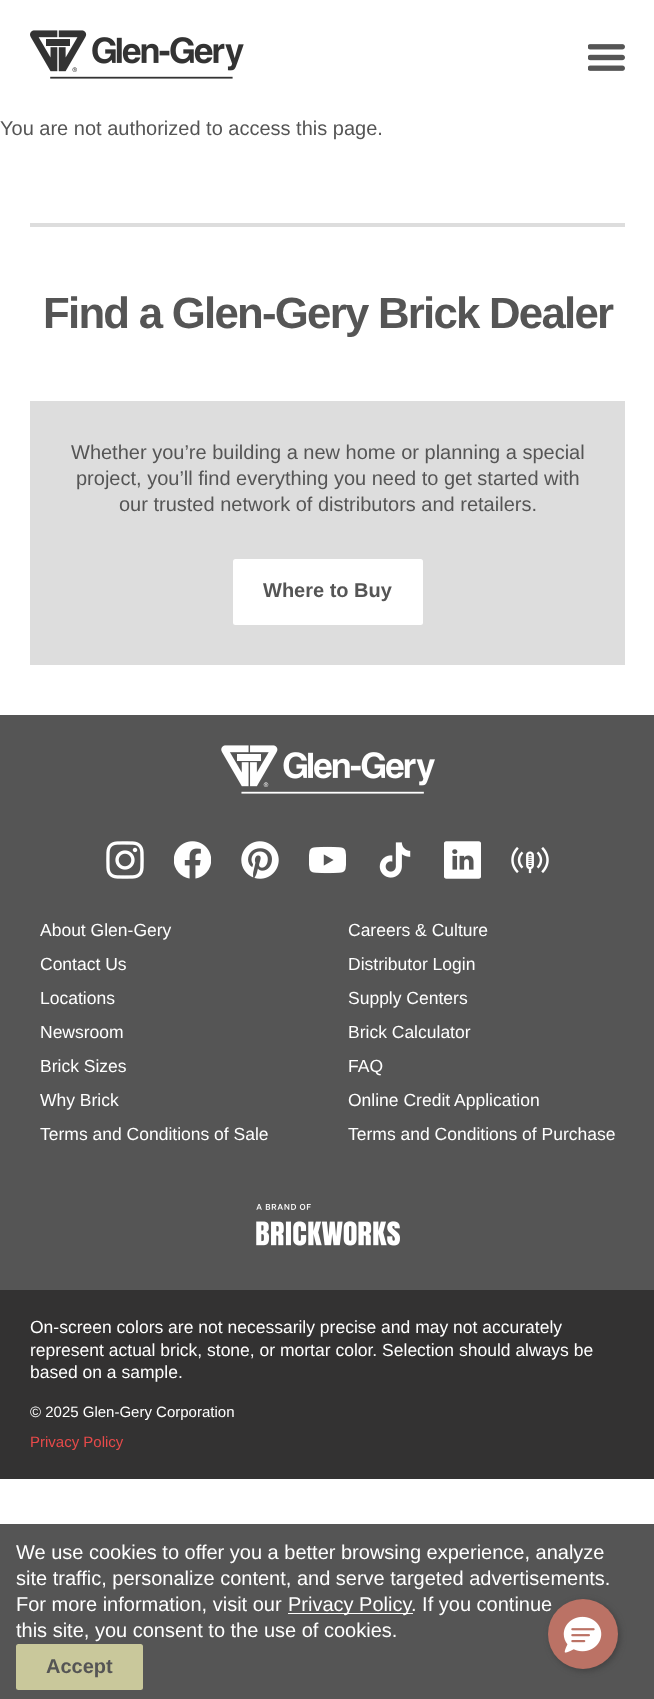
(async () => {
    const canvas = document.querySelector("canvas");
    canvas.width = 654;
    canvas.height = 1699;
    const context = canvas.getContext("2d");
    context.miterLimit = 4;
    context.fontKerning = "normal";
    function write(s, x, y, font, color) {
        context.font = font;
        context.fillStyle = color;
        context.fillText(s, x, y);
    }
    function block(x, y, w, h, color) {
        context.fillStyle = color;
        context.fillRect(x, y, w, h);
    }
    function card(x, y, w, h, r, color) {
        context.fillStyle = color;
        context.beginPath();
        context.roundRect(x, y, w, h, r);
        context.fill();
    }
    async function photo(src, x, y, w, h) {
        const img = new Image();
        img.src = src;
        await img.decode();
        context.drawImage(img, x, y, w, h);
    }

    block(0, 0, 654, 1699, "rgb(255, 255, 255)");
    await photo("media/1.png", 30, 30, 214, 49);
    await photo("media/2.png", 588, 44, 37, 27);
    write("You are not authorized to access this page.", 0, 135, "20px Liberation Sans", "rgb(85, 85, 85)");
    block(30, 223, 595, 4, "rgb(221, 221, 221)");
    context.letterSpacing = "-1.75px";
    write("Find a Glen-Gery Brick Dealer", 43, 328, "bold 43.75px Liberation Sans", "rgb(85, 85, 85)");
    block(30, 401, 595, 264, "rgb(221, 221, 221)");
    context.letterSpacing = "0px";
    write("Whether you’re building a new home or planning a special", 71, 459, "20px Liberation Sans", "rgb(85, 85, 85)");
    write("project, you’ll find everything you need to get started with", 76, 485, "20px Liberation Sans", "rgb(85, 85, 85)");
    write("our trusted network of distributors and retailers.", 119, 511, "20px Liberation Sans", "rgb(85, 85, 85)");
    card(233, 559, 190, 66, 2.5, "rgb(255, 255, 255)");
    write("Where to Buy", 263, 597, "bold 20px Liberation Sans", "rgb(85, 85, 85)");
    block(0, 715, 654, 575, "rgb(85, 85, 85)");
    await photo("media/3.png", 221, 745, 214, 49);
    await photo("media/4.png", 106, 841, 38, 38);
    await photo("media/5.png", 174, 841, 37, 38);
    await photo("media/6.png", 241, 841, 38, 38);
    await photo("media/7.png", 309, 846, 37, 28);
    await photo("media/8.png", 379, 842, 32, 36);
    await photo("media/9.png", 444, 841, 37, 38);
    await photo("media/10.png", 511, 847, 38, 27);
    write("About Glen-Gery", 40, 936, "17.5px Liberation Sans", "rgb(255, 255, 255)");
    write("Careers & Culture", 348, 936, "17.5px Liberation Sans", "rgb(255, 255, 255)");
    write("Contact Us", 40, 970, "17.5px Liberation Sans", "rgb(255, 255, 255)");
    write("Distributor Login", 348, 970, "17.5px Liberation Sans", "rgb(255, 255, 255)");
    write("Locations", 40, 1004, "17.5px Liberation Sans", "rgb(255, 255, 255)");
    write("Supply Centers", 348, 1004, "17.5px Liberation Sans", "rgb(255, 255, 255)");
    write("Newsroom", 40, 1038, "17.5px Liberation Sans", "rgb(255, 255, 255)");
    write("Brick Calculator", 348, 1038, "17.5px Liberation Sans", "rgb(255, 255, 255)");
    write("Brick Sizes", 40, 1072, "17.5px Liberation Sans", "rgb(255, 255, 255)");
    write("FAQ", 348, 1072, "17.5px Liberation Sans", "rgb(255, 255, 255)");
    write("Why Brick", 40, 1106, "17.5px Liberation Sans", "rgb(255, 255, 255)");
    write("Online Credit Application", 348, 1106, "17.5px Liberation Sans", "rgb(255, 255, 255)");
    write("Terms and Conditions of Sale", 40, 1140, "17.5px Liberation Sans", "rgb(255, 255, 255)");
    write("Terms and Conditions of Purchase", 348, 1140, "17.5px Liberation Sans", "rgb(255, 255, 255)");
    await photo("media/11.png", 256, 1203, 144, 43);
    block(0, 1290, 654, 189, "rgb(51, 50, 50)");
    write("On-screen colors are not necessarily precise and may not accurately", 30, 1333, "17.5px Liberation Sans", "rgb(255, 255, 255)");
    write("represent actual brick, stone, or mortar color. Selection should always be", 30, 1356, "17.5px Liberation Sans", "rgb(255, 255, 255)");
    write("based on a sample.", 30, 1378, "17.5px Liberation Sans", "rgb(255, 255, 255)");
    write("© 2025 Glen-Gery Corporation", 30, 1417, "15px Liberation Sans", "rgb(255, 255, 255)");
    write("Privacy Policy", 30, 1447, "15px Liberation Sans", "rgb(231, 74, 74)");
    block(0, 1524, 654, 175, "rgb(85, 85, 85)");
    write("We use cookies to offer you a better browsing experience, analyze", 16, 1559, "20px Liberation Sans", "rgb(255, 255, 255)");
    write("site traffic, personalize content, and serve targeted advertisements.", 16, 1585, "20px Liberation Sans", "rgb(255, 255, 255)");
    write("For more information, visit our", 16, 1611, "20px Liberation Sans", "rgb(255, 255, 255)");
    block(288, 1613, 125, 1, "rgb(255, 255, 255)");
    write("Privacy Policy. If you continue", 288, 1611, "20px Liberation Sans", "rgb(255, 255, 255)");
    write("this site, you consent to the use of cookies.", 16, 1637, "20px Liberation Sans", "rgb(255, 255, 255)");
    card(16, 1644, 127, 46, 2.5, "rgb(201, 200, 155)");
    write("Accept", 46, 1673, "bold 20px Liberation Sans", "rgb(85, 85, 85)");
    context.fillStyle = "rgba(45, 45, 45, 0.5)";
    context.filter = "blur(3px)";
    context.beginPath();
    context.roundRect(550, 1601, 70, 70, 35);
    context.fill();
    context.filter = "none";
    context.fillStyle = "rgb(187, 114, 101)";
    context.beginPath();
    context.arc(583, 1634, 35, 0, Math.PI * 2);
    context.fill();
    await photo("media/12.png", 563, 1616, 39, 37);
})();
